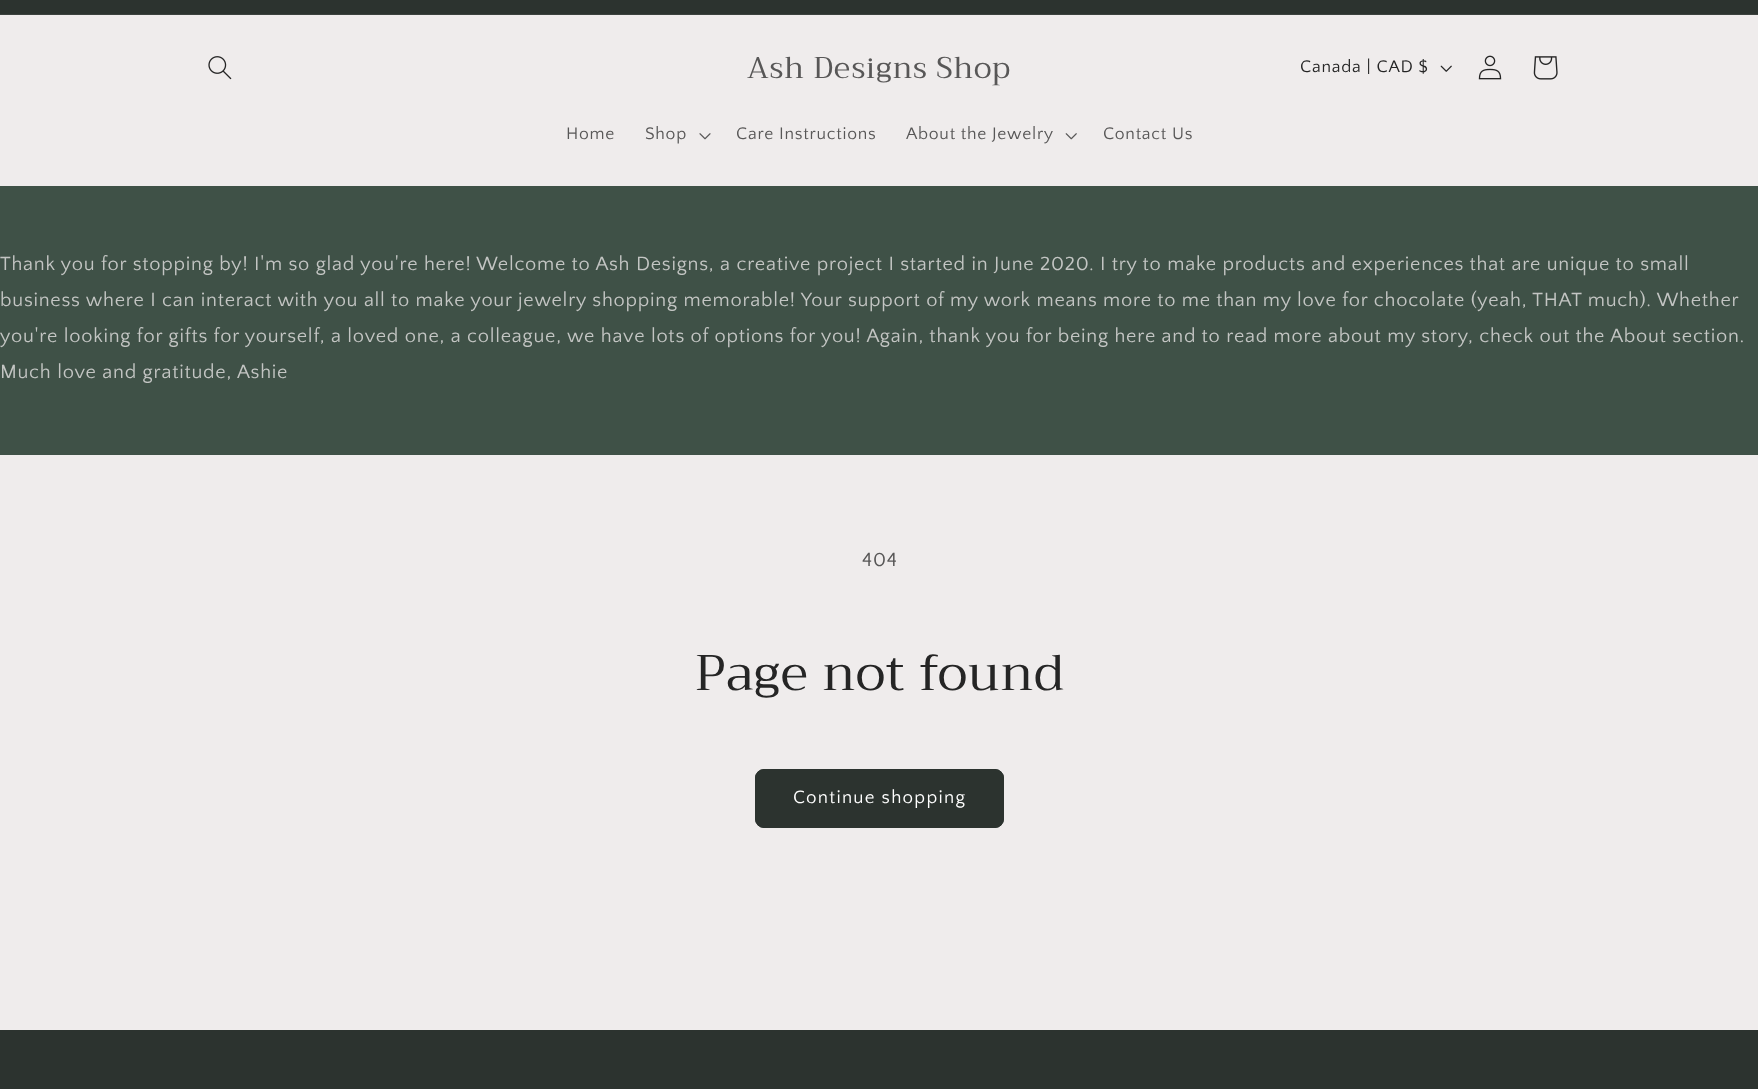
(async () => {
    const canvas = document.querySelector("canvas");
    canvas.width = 1758;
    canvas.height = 1089;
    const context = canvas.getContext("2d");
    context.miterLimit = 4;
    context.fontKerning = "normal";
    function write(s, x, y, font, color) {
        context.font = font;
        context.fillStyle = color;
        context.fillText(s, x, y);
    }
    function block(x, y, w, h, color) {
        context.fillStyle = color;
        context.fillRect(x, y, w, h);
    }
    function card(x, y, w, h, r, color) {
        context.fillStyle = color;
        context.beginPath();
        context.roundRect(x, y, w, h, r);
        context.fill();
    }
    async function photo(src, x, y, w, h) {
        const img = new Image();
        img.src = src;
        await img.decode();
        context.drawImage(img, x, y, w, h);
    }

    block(0, 0, 1758, 1089, "rgb(239, 236, 236)");
    block(0, 0, 1758, 14, "rgb(44, 51, 47)");
    block(0, 14, 1758, 1, "rgb(60, 66, 62)");
    await photo("media/1.png", 208, 56, 24, 24);
    context.letterSpacing = "0.75px";
    write("Ash Designs Shop", 747, 78, "30px Trirong", "rgb(88, 87, 87)");
    write("Canada | CAD $", 1300, 72, "17.5px Quattrocento Sans", "rgb(37, 37, 37)");
    await photo("media/2.png", 1440, 65, 12, 7);
    await photo("media/3.png", 1478, 55, 24, 25);
    await photo("media/4.png", 1533, 56, 25, 24);
    write("Home", 566, 139, "17.5px Quattrocento Sans", "rgb(88, 87, 87)");
    write("Shop", 645, 139, "17.5px Quattrocento Sans", "rgb(88, 87, 87)");
    await photo("media/5.png", 699, 133, 12, 7);
    write("Care Instructions", 736, 139, "17.5px Quattrocento Sans", "rgb(88, 87, 87)");
    write("About the Jewelry", 906, 139, "17.5px Quattrocento Sans", "rgb(88, 87, 87)");
    await photo("media/6.png", 1065, 133, 12, 7);
    write("Contact Us", 1103, 139, "17.5px Quattrocento Sans", "rgb(88, 87, 87)");
    block(0, 186, 1758, 269, "rgb(63, 81, 71)");
    write("Thank you for stopping by! I'm so glad you're here! Welcome to Ash Designs, a creative project I started in June 2020. I try to make products and experiences that are unique to small", 0, 270, "20px Quattrocento Sans", "rgb(195, 197, 195)");
    write("business where I can interact with you all to make your jewelry shopping memorable! Your support of my work means more to me than my love for chocolate (yeah, THAT much). Whether", 0, 306, "20px Quattrocento Sans", "rgb(195, 197, 195)");
    write("you're looking for gifts for yourself, a loved one, a colleague, we have lots of options for you! Again, thank you for being here and to read more about my story, check out the About section.", 0, 342, "20px Quattrocento Sans", "rgb(195, 197, 195)");
    write("Much love and gratitude, Ashie", 0, 378, "20px Quattrocento Sans", "rgb(195, 197, 195)");
    write("404", 862, 566, "20px Quattrocento Sans", "rgb(88, 87, 87)");
    write("Page not found", 695, 690, "50px Trirong", "rgb(37, 37, 37)");
    card(755, 769, 249, 59, 9, "rgb(44, 51, 47)");
    context.beginPath();
    context.roundRect(755.5, 769.5, 248, 58, 8.5);
    context.strokeStyle = "rgb(44, 51, 47)";
    context.stroke();
    context.letterSpacing = "1.25px";
    write("Continue shopping", 793, 803, "18.75px Quattrocento Sans", "rgb(255, 255, 255)");
    block(0, 1030, 1758, 59, "rgb(44, 51, 47)");
})();
